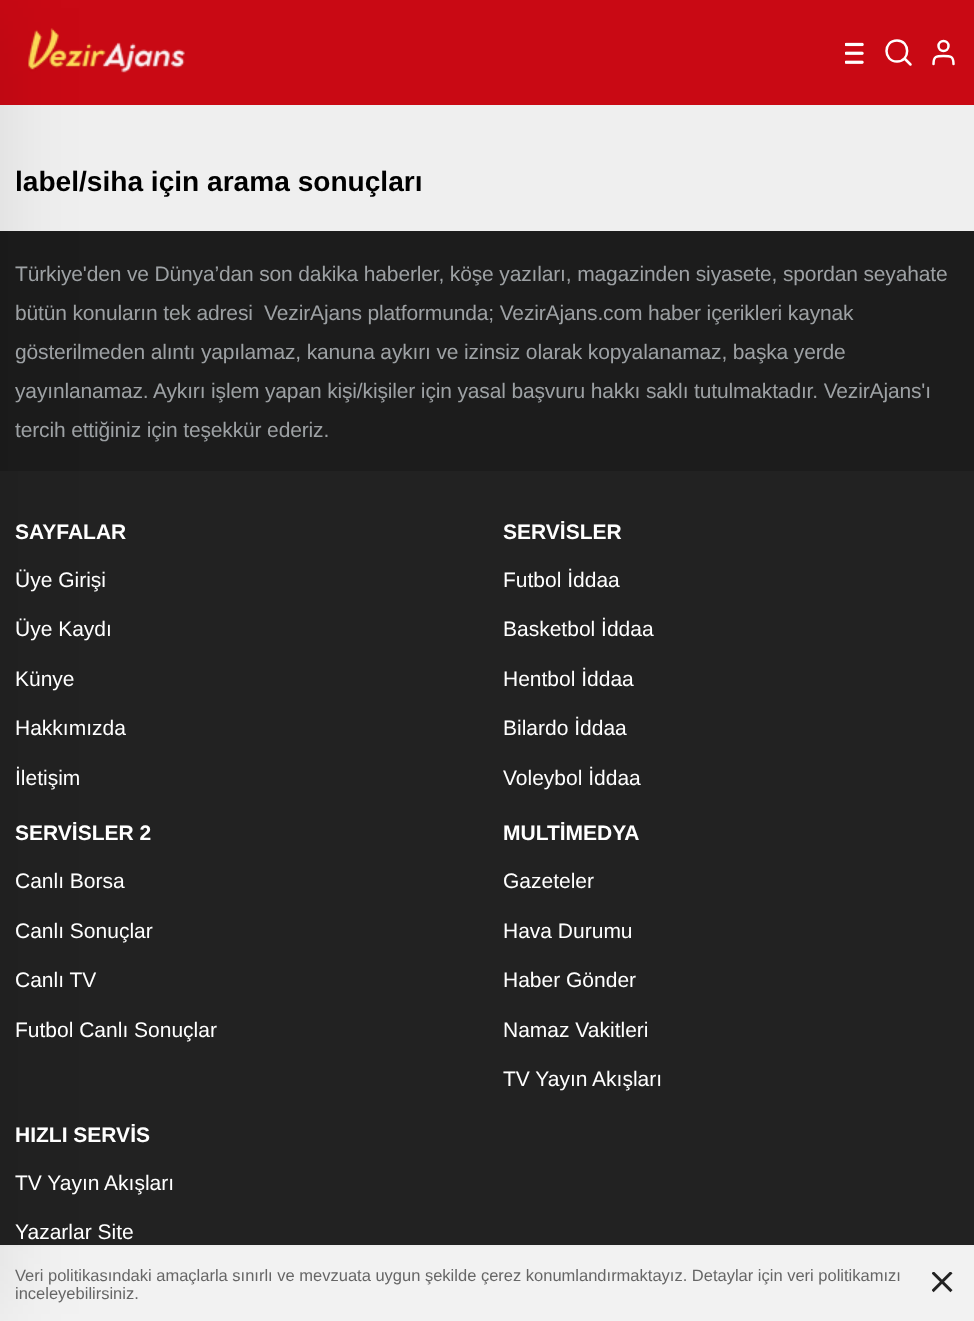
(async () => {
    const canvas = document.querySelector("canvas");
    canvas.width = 974;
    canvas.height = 1321;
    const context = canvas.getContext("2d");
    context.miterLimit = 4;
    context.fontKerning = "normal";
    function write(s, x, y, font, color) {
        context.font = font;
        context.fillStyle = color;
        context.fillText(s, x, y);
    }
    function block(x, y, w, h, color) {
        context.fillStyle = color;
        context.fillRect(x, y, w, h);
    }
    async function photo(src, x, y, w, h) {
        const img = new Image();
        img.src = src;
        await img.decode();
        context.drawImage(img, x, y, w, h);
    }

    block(0, 0, 974, 1321, "rgb(239, 239, 239)");
    block(0, 0, 974, 105, "rgb(201, 9, 20)");
    await photo("media/1.png", 28, 28, 157, 45);
    await photo("media/2.png", 845, 42, 19, 22);
    context.beginPath();
    context.moveTo(897, 61.5);
    context.bezierCurveTo(910.5, 61.5, 910.5, 40.5, 897, 40.5);
    context.bezierCurveTo(883, 40.5, 883, 61.5, 897, 61.5);
    context.closePath();
    context.moveTo(904.5, 58.5);
    context.lineTo(910.5, 64.5);
    context.strokeStyle = "rgb(255, 255, 255)";
    context.lineWidth = 2.5;
    context.lineCap = "round";
    context.lineJoin = "round";
    context.stroke();
    context.beginPath();
    context.moveTo(953.5, 64);
    context.bezierCurveTo(953.5, 56, 950.5, 56, 943.5, 56);
    context.bezierCurveTo(936.5, 56, 933.5, 56, 933.5, 64);
    context.stroke();
    context.beginPath();
    context.arc(943.5, 46, 5, 0, Math.PI * 2);
    context.stroke();
    block(0, 471, 974, 774, "rgb(34, 34, 34)");
    block(0, 1247, 974, 74, "rgb(242, 242, 242)");
    block(0, 231, 974, 240, "rgb(28, 28, 28)");
    context.fillStyle = "rgba(0, 0, 0, 0.1)";
    context.filter = "blur(45px)";
    context.beginPath();
    context.rect(-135, 8, 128, 1306);
    context.fill();
    context.filter = "none";
    write("label/siha için arama sonuçları", 15, 191, "bold 28.1px Liberation Sans", "rgb(0, 0, 0)");
    context.letterSpacing = "-0.15px";
    write("Türkiye'den ve Dünya’dan son dakika haberler, köşe yazıları, magazinden siyasete, spordan seyahate", 15, 281, "21px Liberation Sans", "rgb(157, 161, 164)");
    write("bütün konuların tek adresi  VezirAjans platformunda; VezirAjans.com haber içerikleri kaynak", 15, 320, "21px Liberation Sans", "rgb(157, 161, 164)");
    write("gösterilmeden alıntı yapılamaz, kanuna aykırı ve izinsiz olarak kopyalanamaz, başka yerde", 15, 359, "21px Liberation Sans", "rgb(157, 161, 164)");
    write("yayınlanamaz. Aykırı işlem yapan kişi/kişiler için yasal başvuru hakkı saklı tutulmaktadır. VezirAjans'ı", 15, 398, "21px Liberation Sans", "rgb(157, 161, 164)");
    write("tercih ettiğiniz için teşekkür ederiz.", 15, 437, "21px Liberation Sans", "rgb(157, 161, 164)");
    context.letterSpacing = "0px";
    write("SAYFALAR", 15, 539, "bold 21px Liberation Sans", "rgb(255, 255, 255)");
    write("Üye Girişi", 15, 587, "21px Liberation Sans", "rgb(255, 255, 255)");
    write("Üye Kaydı", 15, 636, "21px Liberation Sans", "rgb(255, 255, 255)");
    write("Künye", 15, 686, "21px Liberation Sans", "rgb(255, 255, 255)");
    write("Hakkımızda", 15, 735, "21px Liberation Sans", "rgb(255, 255, 255)");
    write("İletişim", 15, 785, "21px Liberation Sans", "rgb(255, 255, 255)");
    write("SERVİSLER", 503, 539, "bold 21px Liberation Sans", "rgb(255, 255, 255)");
    write("Futbol İddaa", 503, 587, "21px Liberation Sans", "rgb(255, 255, 255)");
    write("Basketbol İddaa", 503, 636, "21px Liberation Sans", "rgb(255, 255, 255)");
    write("Hentbol İddaa", 503, 686, "21px Liberation Sans", "rgb(255, 255, 255)");
    write("Bilardo İddaa", 503, 735, "21px Liberation Sans", "rgb(255, 255, 255)");
    write("Voleybol İddaa", 503, 785, "21px Liberation Sans", "rgb(255, 255, 255)");
    write("SERVİSLER 2", 15, 840, "bold 21px Liberation Sans", "rgb(255, 255, 255)");
    write("Canlı Borsa", 15, 888, "21px Liberation Sans", "rgb(255, 255, 255)");
    write("Canlı Sonuçlar", 15, 938, "21px Liberation Sans", "rgb(255, 255, 255)");
    write("Canlı TV", 15, 987, "21px Liberation Sans", "rgb(255, 255, 255)");
    write("Futbol Canlı Sonuçlar", 15, 1037, "21px Liberation Sans", "rgb(255, 255, 255)");
    write("MULTİMEDYA", 503, 840, "bold 21px Liberation Sans", "rgb(255, 255, 255)");
    write("Gazeteler", 503, 888, "21px Liberation Sans", "rgb(255, 255, 255)");
    write("Hava Durumu", 503, 938, "21px Liberation Sans", "rgb(255, 255, 255)");
    write("Haber Gönder", 503, 987, "21px Liberation Sans", "rgb(255, 255, 255)");
    write("Namaz Vakitleri", 503, 1037, "21px Liberation Sans", "rgb(255, 255, 255)");
    write("TV Yayın Akışları", 503, 1086, "21px Liberation Sans", "rgb(255, 255, 255)");
    write("HIZLI SERVİS", 15, 1142, "bold 21px Liberation Sans", "rgb(255, 255, 255)");
    write("TV Yayın Akışları", 15, 1190, "21px Liberation Sans", "rgb(255, 255, 255)");
    write("Yazarlar Site", 15, 1239, "21px Liberation Sans", "rgb(255, 255, 255)");
    write("Veri politikasındaki amaçlarla sınırlı ve mevzuata uygun şekilde çerez konumlandırmaktayız. Detaylar için veri politikamızı", 15, 1281, "16.5px Liberation Sans", "rgb(102, 102, 102)");
    write("inceleyebilirsiniz.", 15, 1299, "16.5px Liberation Sans", "rgb(102, 102, 102)");
    await photo("media/3.png", 932, 1272, 21, 21);
})();
